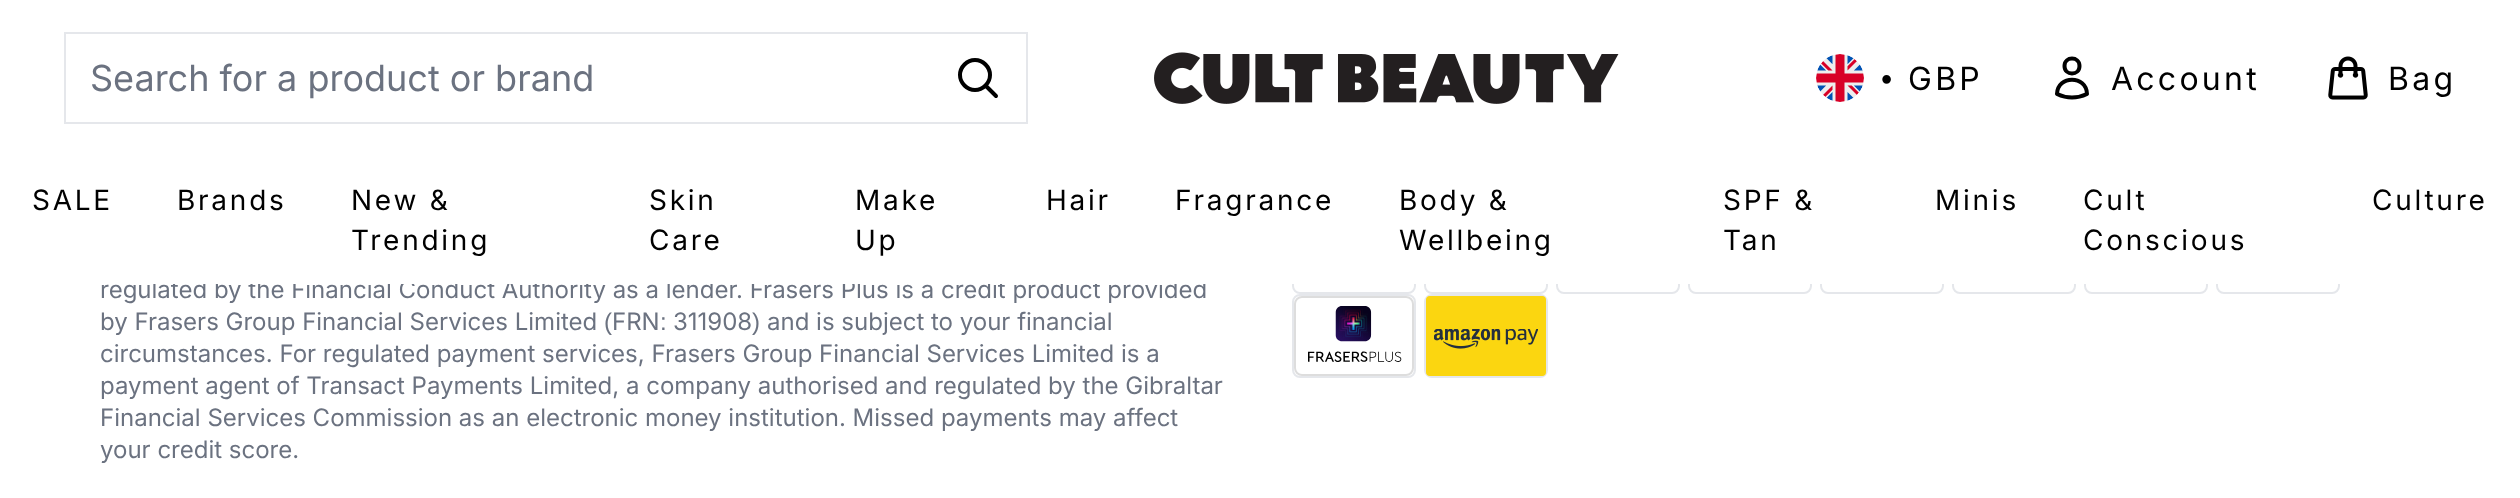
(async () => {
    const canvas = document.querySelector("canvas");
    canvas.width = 2520;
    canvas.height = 498;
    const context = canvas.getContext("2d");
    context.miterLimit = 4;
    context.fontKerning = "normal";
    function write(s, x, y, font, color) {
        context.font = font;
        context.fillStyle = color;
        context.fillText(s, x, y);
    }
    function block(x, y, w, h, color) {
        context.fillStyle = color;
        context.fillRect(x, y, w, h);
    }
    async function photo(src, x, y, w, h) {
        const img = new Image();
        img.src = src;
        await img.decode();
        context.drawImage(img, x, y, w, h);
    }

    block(0, 0, 2520, 498, "rgb(255, 255, 255)");
    context.strokeStyle = "rgb(229, 231, 235)";
    context.lineWidth = 2;
    context.strokeRect(65, 33, 962, 90);
    write("Search for a product or brand", 90, 91, "36px Inter", "rgb(107, 114, 128)");
    context.beginPath();
    context.moveTo(996, 96);
    context.lineTo(985.5, 85.5);
    context.moveTo(985.5, 85.5);
    context.bezierCurveTo(991.5, 79.5, 991.5, 70.5, 985.5, 64.5);
    context.bezierCurveTo(979.5, 58.5, 970.5, 58.5, 964.5, 64.5);
    context.bezierCurveTo(958.5, 70.5, 958.5, 79.5, 964.5, 85.5);
    context.bezierCurveTo(970.5, 91.5, 979.5, 91.5, 985.5, 85.5);
    context.closePath();
    context.strokeStyle = "rgb(0, 0, 0)";
    context.lineWidth = 4;
    context.lineCap = "round";
    context.lineJoin = "round";
    context.stroke();
    await photo("media/1.png", 1154, 52, 465, 52);
    await photo("media/2.png", 1816, 54, 48, 48);
    write("•", 1881, 90, "32px Liberation Sans", "rgb(0, 0, 0)");
    context.letterSpacing = "3.25px";
    write("GBP", 1908, 90, "32px Inter", "rgb(0, 0, 0)");
    context.beginPath();
    context.moveTo(2079.5, 66);
    context.bezierCurveTo(2079.5, 76, 2064.5, 76, 2064.5, 66);
    context.bezierCurveTo(2064.5, 56, 2079.5, 56, 2079.5, 66);
    context.closePath();
    context.moveTo(2057, 94);
    context.bezierCurveTo(2057.5, 75, 2086.5, 75, 2087, 94);
    context.bezierCurveTo(2077.5, 98.5, 2066.5, 98.5, 2057, 94);
    context.closePath();
    context.stroke();
    write("Account", 2111, 90, "32px Inter", "rgb(0, 0, 0)");
    await photo("media/3.png", 2328, 56, 40, 44);
    write("Bag", 2388, 90, "32px Inter", "rgb(0, 0, 0)");
    context.letterSpacing = "0px";
    write("regulated by the Financial Conduct Authority as a lender. Frasers Plus is a credit product provided", 100, 298, "24px Inter", "rgb(107, 114, 128)");
    context.beginPath();
    context.roundRect(1293, 211, 122, 82, 7);
    context.strokeStyle = "rgb(229, 231, 235)";
    context.lineWidth = 2;
    context.lineJoin = "miter";
    context.stroke();
    context.beginPath();
    context.roundRect(1425, 211, 122, 82, 7);
    context.stroke();
    context.beginPath();
    context.roundRect(1557, 211, 122, 82, 7);
    context.stroke();
    context.beginPath();
    context.roundRect(1689, 211, 122, 82, 7);
    context.stroke();
    context.beginPath();
    context.roundRect(1821, 211, 122, 82, 7);
    context.stroke();
    context.beginPath();
    context.roundRect(1953, 211, 122, 82, 7);
    context.stroke();
    context.beginPath();
    context.roundRect(2085, 211, 122, 82, 7);
    context.stroke();
    context.beginPath();
    context.roundRect(2217, 211, 122, 82, 7);
    context.stroke();
    block(153, 210, 2187, 74, "rgb(255, 255, 255)");
    context.letterSpacing = "2.75px";
    write("SALE", 32, 210, "28px Inter", "rgb(0, 0, 0)");
    write("Brands", 177, 210, "28px Inter", "rgb(0, 0, 0)");
    write("New &", 351, 210, "28px Inter", "rgb(0, 0, 0)");
    write("Trending", 351, 250, "28px Inter", "rgb(0, 0, 0)");
    write("Skin", 649, 210, "28px Inter", "rgb(0, 0, 0)");
    write("Care", 649, 250, "28px Inter", "rgb(0, 0, 0)");
    write("Make", 855, 210, "28px Inter", "rgb(0, 0, 0)");
    write("Up", 855, 250, "28px Inter", "rgb(0, 0, 0)");
    write("Hair", 1046, 210, "28px Inter", "rgb(0, 0, 0)");
    write("Fragrance", 1175, 210, "28px Inter", "rgb(0, 0, 0)");
    write("Body &", 1399, 210, "28px Inter", "rgb(0, 0, 0)");
    write("Wellbeing", 1399, 250, "28px Inter", "rgb(0, 0, 0)");
    write("SPF &", 1723, 210, "28px Inter", "rgb(0, 0, 0)");
    write("Tan", 1723, 250, "28px Inter", "rgb(0, 0, 0)");
    write("Minis", 1935, 210, "28px Inter", "rgb(0, 0, 0)");
    write("Cult", 2083, 210, "28px Inter", "rgb(0, 0, 0)");
    write("Conscious", 2083, 250, "28px Inter", "rgb(0, 0, 0)");
    write("Culture", 2372, 210, "28px Inter", "rgb(0, 0, 0)");
    context.letterSpacing = "0px";
    write("by Frasers Group Financial Services Limited", 100, 330, "24px Inter", "rgb(107, 114, 128)");
    write("(", 604, 330, "24px Liberation Sans", "rgb(107, 114, 128)");
    write("FRN", 612, 330, "24px Inter", "rgb(107, 114, 128)");
    write(":", 660, 330, "24px Liberation Sans", "rgb(107, 114, 128)");
    write("311908", 673, 330, "24px Inter", "rgb(107, 114, 128)");
    write(")", 752, 330, "24px Liberation Sans", "rgb(107, 114, 128)");
    write("and is subject to your financial", 767, 330, "24px Inter", "rgb(107, 114, 128)");
    write("circumstances. For regulated payment services, Frasers Group Financial Services Limited is a", 100, 362, "24px Inter", "rgb(107, 114, 128)");
    write("payment agent of Transact Payments Limited, a company authorised and regulated by the Gibraltar", 100, 394, "24px Inter", "rgb(107, 114, 128)");
    write("Financial Services Commission as an electronic money institution. Missed payments may affect", 100, 426, "24px Inter", "rgb(107, 114, 128)");
    write("your credit score.", 100, 458, "24px Inter", "rgb(107, 114, 128)");
    context.beginPath();
    context.roundRect(1293, 295, 122, 82, 7);
    context.stroke();
    await photo("media/4.png", 1294, 296, 120, 80);
    context.beginPath();
    context.roundRect(1425, 295, 122, 82, 7);
    context.stroke();
    await photo("media/5.png", 1426, 296, 120, 80);
})();
